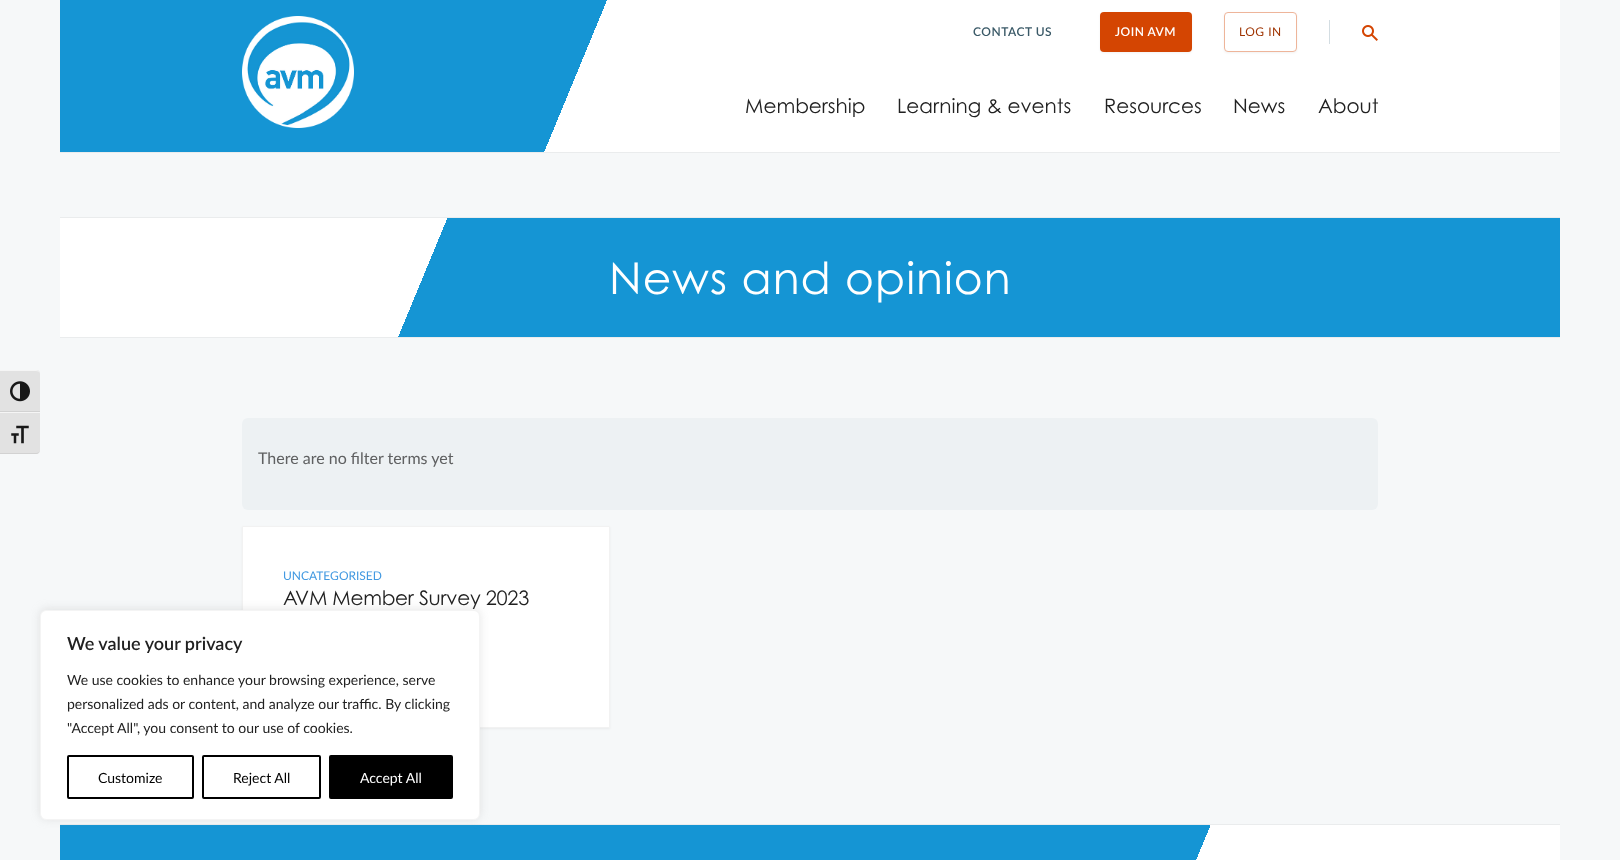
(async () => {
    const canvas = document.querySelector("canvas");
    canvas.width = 1620;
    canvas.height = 860;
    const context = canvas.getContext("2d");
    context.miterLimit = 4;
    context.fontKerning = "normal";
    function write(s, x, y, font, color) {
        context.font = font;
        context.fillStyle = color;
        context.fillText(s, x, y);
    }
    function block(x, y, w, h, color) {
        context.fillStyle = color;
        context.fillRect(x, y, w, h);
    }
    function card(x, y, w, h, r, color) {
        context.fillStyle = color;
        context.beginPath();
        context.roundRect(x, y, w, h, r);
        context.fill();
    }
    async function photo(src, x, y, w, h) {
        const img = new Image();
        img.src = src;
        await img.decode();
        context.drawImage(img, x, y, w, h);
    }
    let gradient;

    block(0, 0, 1620, 860, "rgb(246, 248, 249)");
    context.fillStyle = "rgb(226, 226, 226)";
    context.beginPath();
    context.roundRect(0, 370, 40, 42, [0, 4, 0, 0]);
    context.fill();
    context.fillStyle = "rgb(245, 245, 245)";
    context.beginPath();
    context.moveTo(0, 370);
    context.lineTo(0, 371);
    context.lineTo(36, 371);
    context.bezierCurveTo(38, 371, 40, 372, 40, 374);
    context.bezierCurveTo(40, 372, 38, 370, 36, 370);
    context.closePath();
    context.fill();
    block(0, 411, 40, 1, "rgb(210, 210, 210)");
    await photo("media/1.png", 10, 381, 20, 21);
    context.fillStyle = "rgb(226, 226, 226)";
    context.beginPath();
    context.roundRect(0, 412, 40, 42, [0, 0, 4, 0]);
    context.fill();
    block(0, 412, 40, 1, "rgb(245, 245, 245)");
    context.fillStyle = "rgb(210, 210, 210)";
    context.beginPath();
    context.moveTo(0, 453);
    context.lineTo(0, 454);
    context.lineTo(36, 454);
    context.bezierCurveTo(38, 454, 40, 452, 40, 450);
    context.bezierCurveTo(40, 452, 38, 453, 36, 453);
    context.closePath();
    context.fill();
    await photo("media/2.png", 11, 425, 18, 19);
    block(60, 152, 1500, 1, "rgb(234, 236, 237)");
    gradient = context.createLinearGradient(1477, 352, 143, -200);
    gradient.addColorStop(0, "rgb(255, 255, 255)");
    gradient.addColorStop(0.65, "rgb(255, 255, 255)");
    gradient.addColorStop(0.65, "rgb(21, 149, 212)");
    gradient.addColorStop(0.7, "rgb(21, 149, 212)");
    context.fillStyle = gradient;
    context.fillRect(60, 0, 1500, 152);
    await photo("media/3.png", 242, 16, 112, 112);
    context.letterSpacing = "0.5px";
    write("CONTACT US", 973, 36, "600 12px Lato", "rgb(58, 89, 103)");
    context.fillStyle = "rgba(0, 0, 0, 0.05)";
    context.filter = "blur(1px)";
    context.beginPath();
    context.roundRect(1100, 13, 92, 40, 4);
    context.fill();
    context.filter = "none";
    card(1100, 12, 92, 40, 4, "rgb(212, 69, 2)");
    write("JOIN AVM", 1115, 36, "600 12px Lato", "rgb(255, 255, 255)");
    context.fillStyle = "rgba(0, 0, 0, 0.05)";
    context.filter = "blur(1px)";
    context.beginPath();
    context.roundRect(1224, 13, 73, 40, 4);
    context.fill();
    context.filter = "none";
    context.fillStyle = "rgb(255, 255, 255)";
    context.beginPath();
    context.roundRect(1224.5, 12.5, 72, 39, 3.5);
    context.fill();
    context.strokeStyle = "rgb(238, 181, 154)";
    context.stroke();
    write("LOG IN", 1239, 36, "12px Lato", "rgb(159, 52, 2)");
    block(1329, 20, 1, 24, "rgb(211, 221, 226)");
    await photo("media/4.png", 1362, 25, 16, 16);
    context.letterSpacing = "0px";
    write("Membership", 745, 113, "20px Century Gothic", "rgb(33, 33, 33)");
    write("Learning & events", 897, 113, "20px Century Gothic", "rgb(33, 33, 33)");
    write("Resources", 1104, 113, "20px Century Gothic", "rgb(33, 33, 33)");
    write("News", 1233, 113, "20px Century Gothic", "rgb(33, 33, 33)");
    write("About", 1318, 113, "20px Century Gothic", "rgb(33, 33, 33)");
    block(60, 217, 1500, 1, "rgb(234, 236, 237)");
    block(60, 337, 1500, 1, "rgb(234, 236, 237)");
    gradient = context.createLinearGradient(1471, 551, 149, 3.6);
    gradient.addColorStop(0, "rgb(21, 149, 212)");
    gradient.addColorStop(0.75, "rgb(21, 149, 212)");
    gradient.addColorStop(0.75, "rgb(255, 255, 255)");
    gradient.addColorStop(0.9, "rgb(255, 255, 255)");
    context.fillStyle = gradient;
    context.fillRect(60, 218, 1500, 119);
    context.letterSpacing = "1.1px";
    write("News and opinion", 609, 294, "44px Century Gothic", "rgb(255, 255, 255)");
    card(242, 418, 1136, 92, 6, "rgb(237, 241, 243)");
    context.letterSpacing = "0px";
    write("There are no filter terms yet", 258, 464, "16px Lato", "rgb(95, 96, 97)");
    context.fillStyle = "rgba(0, 0, 0, 0.05)";
    context.filter = "blur(1px)";
    context.beginPath();
    context.rect(242, 527, 368, 202);
    context.fill();
    context.filter = "none";
    context.fillStyle = "rgb(255, 255, 255)";
    context.beginPath();
    context.rect(242.5, 526.5, 367, 201);
    context.fill();
    context.strokeStyle = "rgb(242, 242, 242)";
    context.stroke();
    write("UNCATEGORISED", 283, 580, "12px Lato", "rgb(66, 153, 225)");
    context.letterSpacing = "-0.25px";
    write("AVM Member Survey 2023", 283, 605, "20px Century Gothic", "rgb(33, 33, 33)");
    block(60, 824, 1500, 1, "rgb(234, 236, 237)");
    gradient = context.createLinearGradient(1543, 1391, 77, 784);
    gradient.addColorStop(0, "rgb(255, 255, 255)");
    gradient.addColorStop(0.33, "rgb(255, 255, 255)");
    gradient.addColorStop(0.33, "rgb(21, 149, 212)");
    gradient.addColorStop(0.4, "rgb(21, 149, 212)");
    context.fillStyle = gradient;
    context.fillRect(60, 825, 1500, 35);
    context.fillStyle = "rgba(172, 171, 171, 0.3)";
    context.filter = "blur(5px)";
    context.beginPath();
    context.roundRect(40, 609, 440, 210, 6);
    context.fill();
    context.filter = "none";
    context.fillStyle = "rgb(255, 255, 255)";
    context.beginPath();
    context.roundRect(40.5, 610.5, 439, 209, 5.5);
    context.fill();
    context.strokeStyle = "rgb(244, 244, 244)";
    context.stroke();
    context.letterSpacing = "0px";
    write("We value your privacy", 67, 650, "600 18px Lato", "rgb(33, 33, 33)");
    write("We use cookies to enhance your browsing experience, serve", 67, 685, "14px Lato", "rgb(33, 33, 33)");
    write("personalized ads or content, and analyze our traffic. By clicking", 67, 709, "14px Lato", "rgb(33, 33, 33)");
    write("\"Accept All\", you consent to our use of cookies.", 67, 733, "14px Lato", "rgb(33, 33, 33)");
    context.beginPath();
    context.roundRect(68, 756, 125, 42, 1);
    context.strokeStyle = "rgb(0, 0, 0)";
    context.lineWidth = 2;
    context.stroke();
    write("Customize", 98, 783, "14px Lato", "rgb(0, 0, 0)");
    context.beginPath();
    context.roundRect(203, 756, 117, 42, 1);
    context.stroke();
    write("Reject All", 233, 783, "14px Lato", "rgb(0, 0, 0)");
    context.beginPath();
    context.roundRect(330, 756, 122, 42, 1);
    context.fill();
    context.stroke();
    write("Accept All", 360, 783, "14px Lato", "rgb(255, 255, 255)");
})();
